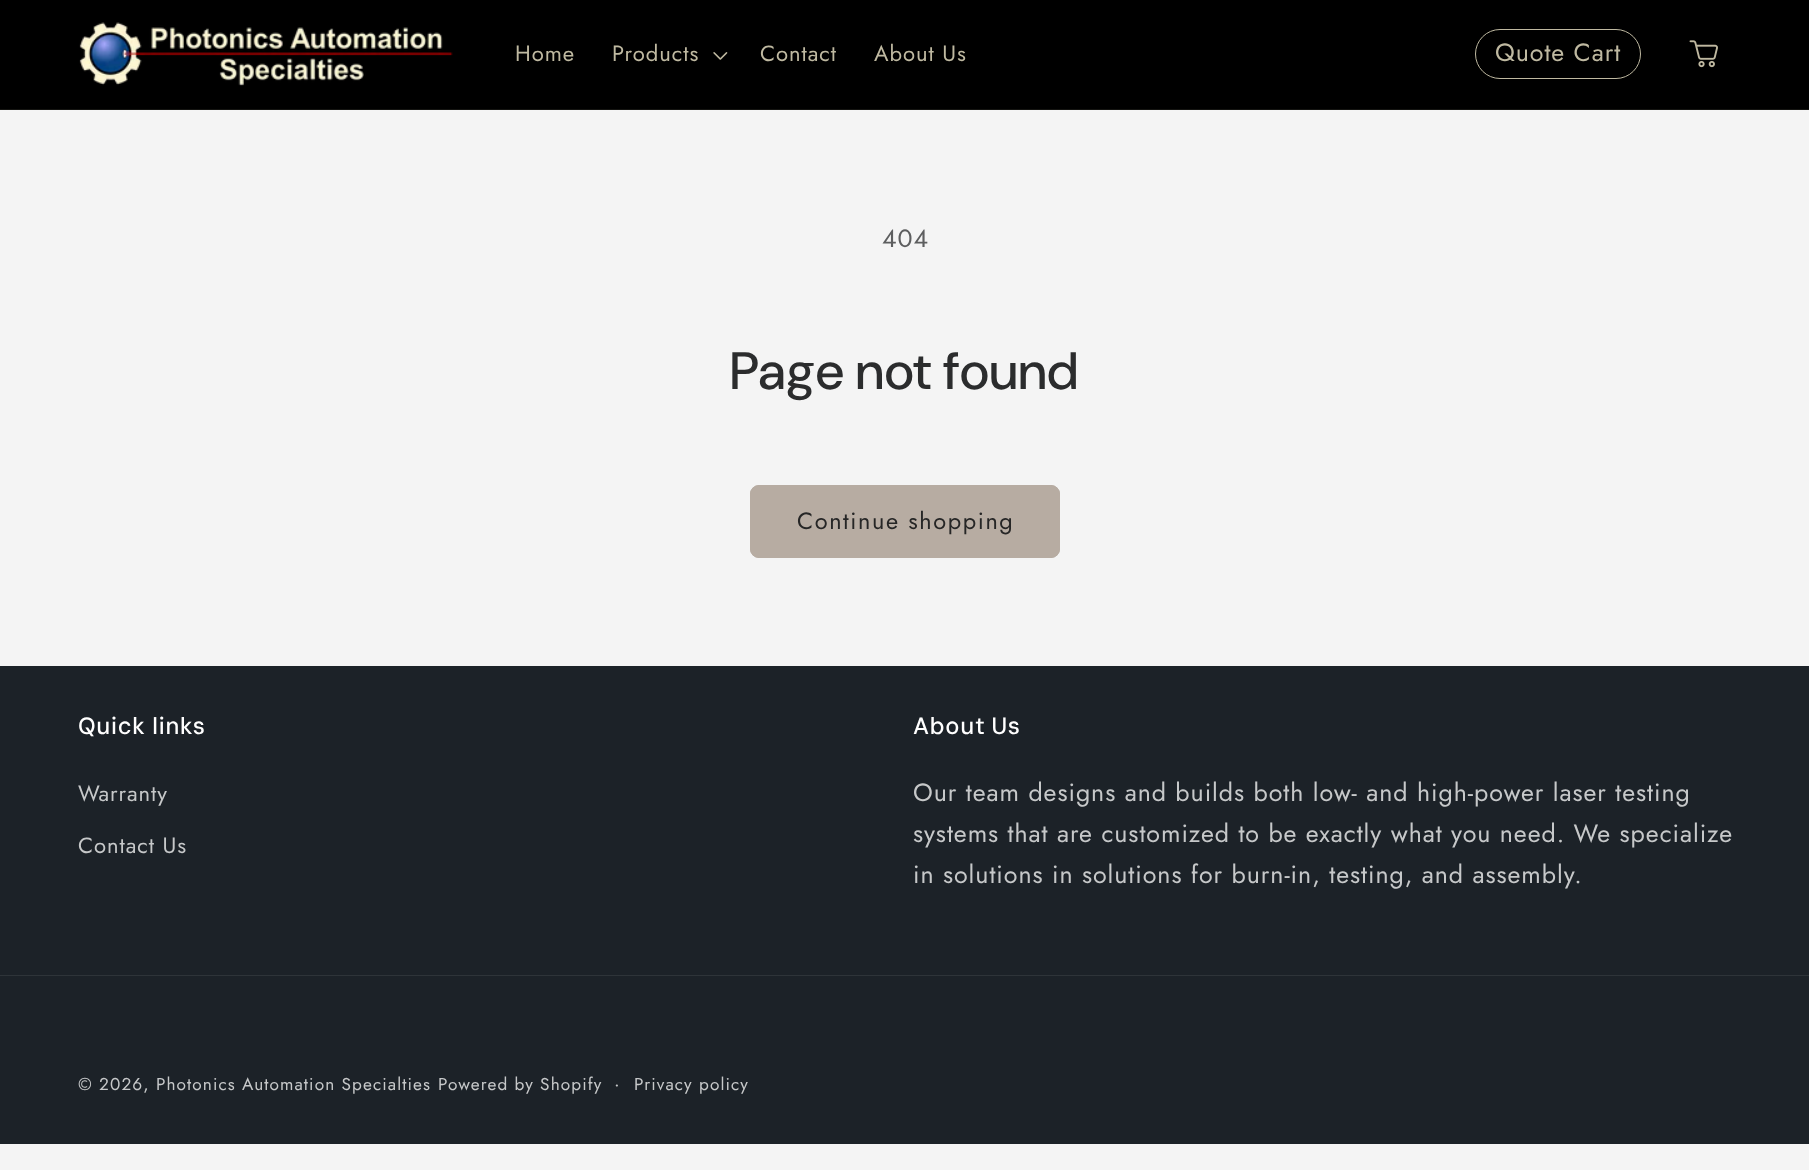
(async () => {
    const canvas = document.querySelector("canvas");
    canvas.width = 1809;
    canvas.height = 1170;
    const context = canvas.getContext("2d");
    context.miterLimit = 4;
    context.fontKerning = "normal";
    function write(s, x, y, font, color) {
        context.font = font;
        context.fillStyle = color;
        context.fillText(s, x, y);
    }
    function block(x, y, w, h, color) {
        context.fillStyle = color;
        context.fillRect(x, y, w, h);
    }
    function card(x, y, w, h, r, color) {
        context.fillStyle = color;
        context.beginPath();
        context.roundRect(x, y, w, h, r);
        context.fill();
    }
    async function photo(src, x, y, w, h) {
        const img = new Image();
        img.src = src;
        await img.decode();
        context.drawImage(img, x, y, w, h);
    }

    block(0, 0, 1809, 1170, "rgb(244, 244, 244)");
    block(0, 0, 1809, 109, "rgb(0, 0, 0)");
    block(0, 109, 1809, 1, "rgb(20, 20, 17)");
    await photo("media/1.png", 79, 22, 374, 64);
    context.letterSpacing = "0.95px";
    write("Home", 515, 61, "22px Jost", "rgb(191, 185, 161)");
    write("Products", 612, 61, "22px Jost", "rgb(191, 185, 161)");
    await photo("media/2.png", 713, 52, 15, 8);
    write("Contact", 760, 61, "22px Jost", "rgb(191, 185, 161)");
    write("About Us", 874, 61, "22px Jost", "rgb(191, 185, 161)");
    context.beginPath();
    context.roundRect(1475.5, 29.5, 165, 49, 24.5);
    context.strokeStyle = "rgb(191, 185, 161)";
    context.stroke();
    write("Quote Cart", 1495, 61, "25px Jost", "rgb(191, 185, 161)");
    await photo("media/3.png", 1689, 40, 29, 28);
    write("404", 882, 247, "25px Jost", "rgb(93, 94, 95)");
    context.letterSpacing = "0.75px";
    write("Page not found", 730, 389, "500 52.5px DM Sans", "rgb(43, 44, 45)");
    card(750, 485, 310, 73, 9, "rgb(183, 172, 162)");
    context.beginPath();
    context.roundRect(750.5, 485.5, 309, 72, 8.5);
    context.strokeStyle = "rgb(183, 172, 162)";
    context.stroke();
    context.letterSpacing = "1.6px";
    write("Continue shopping", 797, 529, "23.5px Jost", "rgb(38, 38, 38)");
    block(0, 666, 1809, 478, "rgb(28, 34, 40)");
    context.letterSpacing = "0.75px";
    write("Quick links", 78, 734, "500 23.5px 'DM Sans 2'", "rgb(255, 255, 255)");
    context.letterSpacing = "0.95px";
    write("Warranty", 78, 801, "22px Jost", "rgb(198, 200, 201)");
    write("Contact Us", 78, 853, "22px Jost", "rgb(198, 200, 201)");
    context.letterSpacing = "0.75px";
    context.wordSpacing = "-1px";
    write("About Us", 913, 734, "500 23.5px 'DM Sans 2'", "rgb(255, 255, 255)");
    context.letterSpacing = "0.95px";
    context.wordSpacing = "0px";
    write("Our team designs and builds both low- and high-power laser testing", 913, 801, "25px Jost", "rgb(198, 200, 201)");
    write("systems that are customized to be exactly what you need. We specialize", 913, 842, "25px Jost", "rgb(198, 200, 201)");
    write("in solutions in solutions for burn-in, testing, and assembly.", 913, 883, "25px Jost", "rgb(198, 200, 201)");
    block(0, 975, 1809, 1, "rgb(46, 52, 57)");
    context.letterSpacing = "1.1px";
    write("© 2026, Photonics Automation Specialties", 78, 1090, "17.2px Jost", "rgb(198, 200, 201)");
    write("Powered by Shopify", 438, 1090, "17.2px Jost", "rgb(198, 200, 201)");
    write("·", 614, 1090, "19px Jost", "rgb(198, 200, 201)");
    write("Privacy policy", 634, 1090, "17.2px Jost", "rgb(198, 200, 201)");
})();
